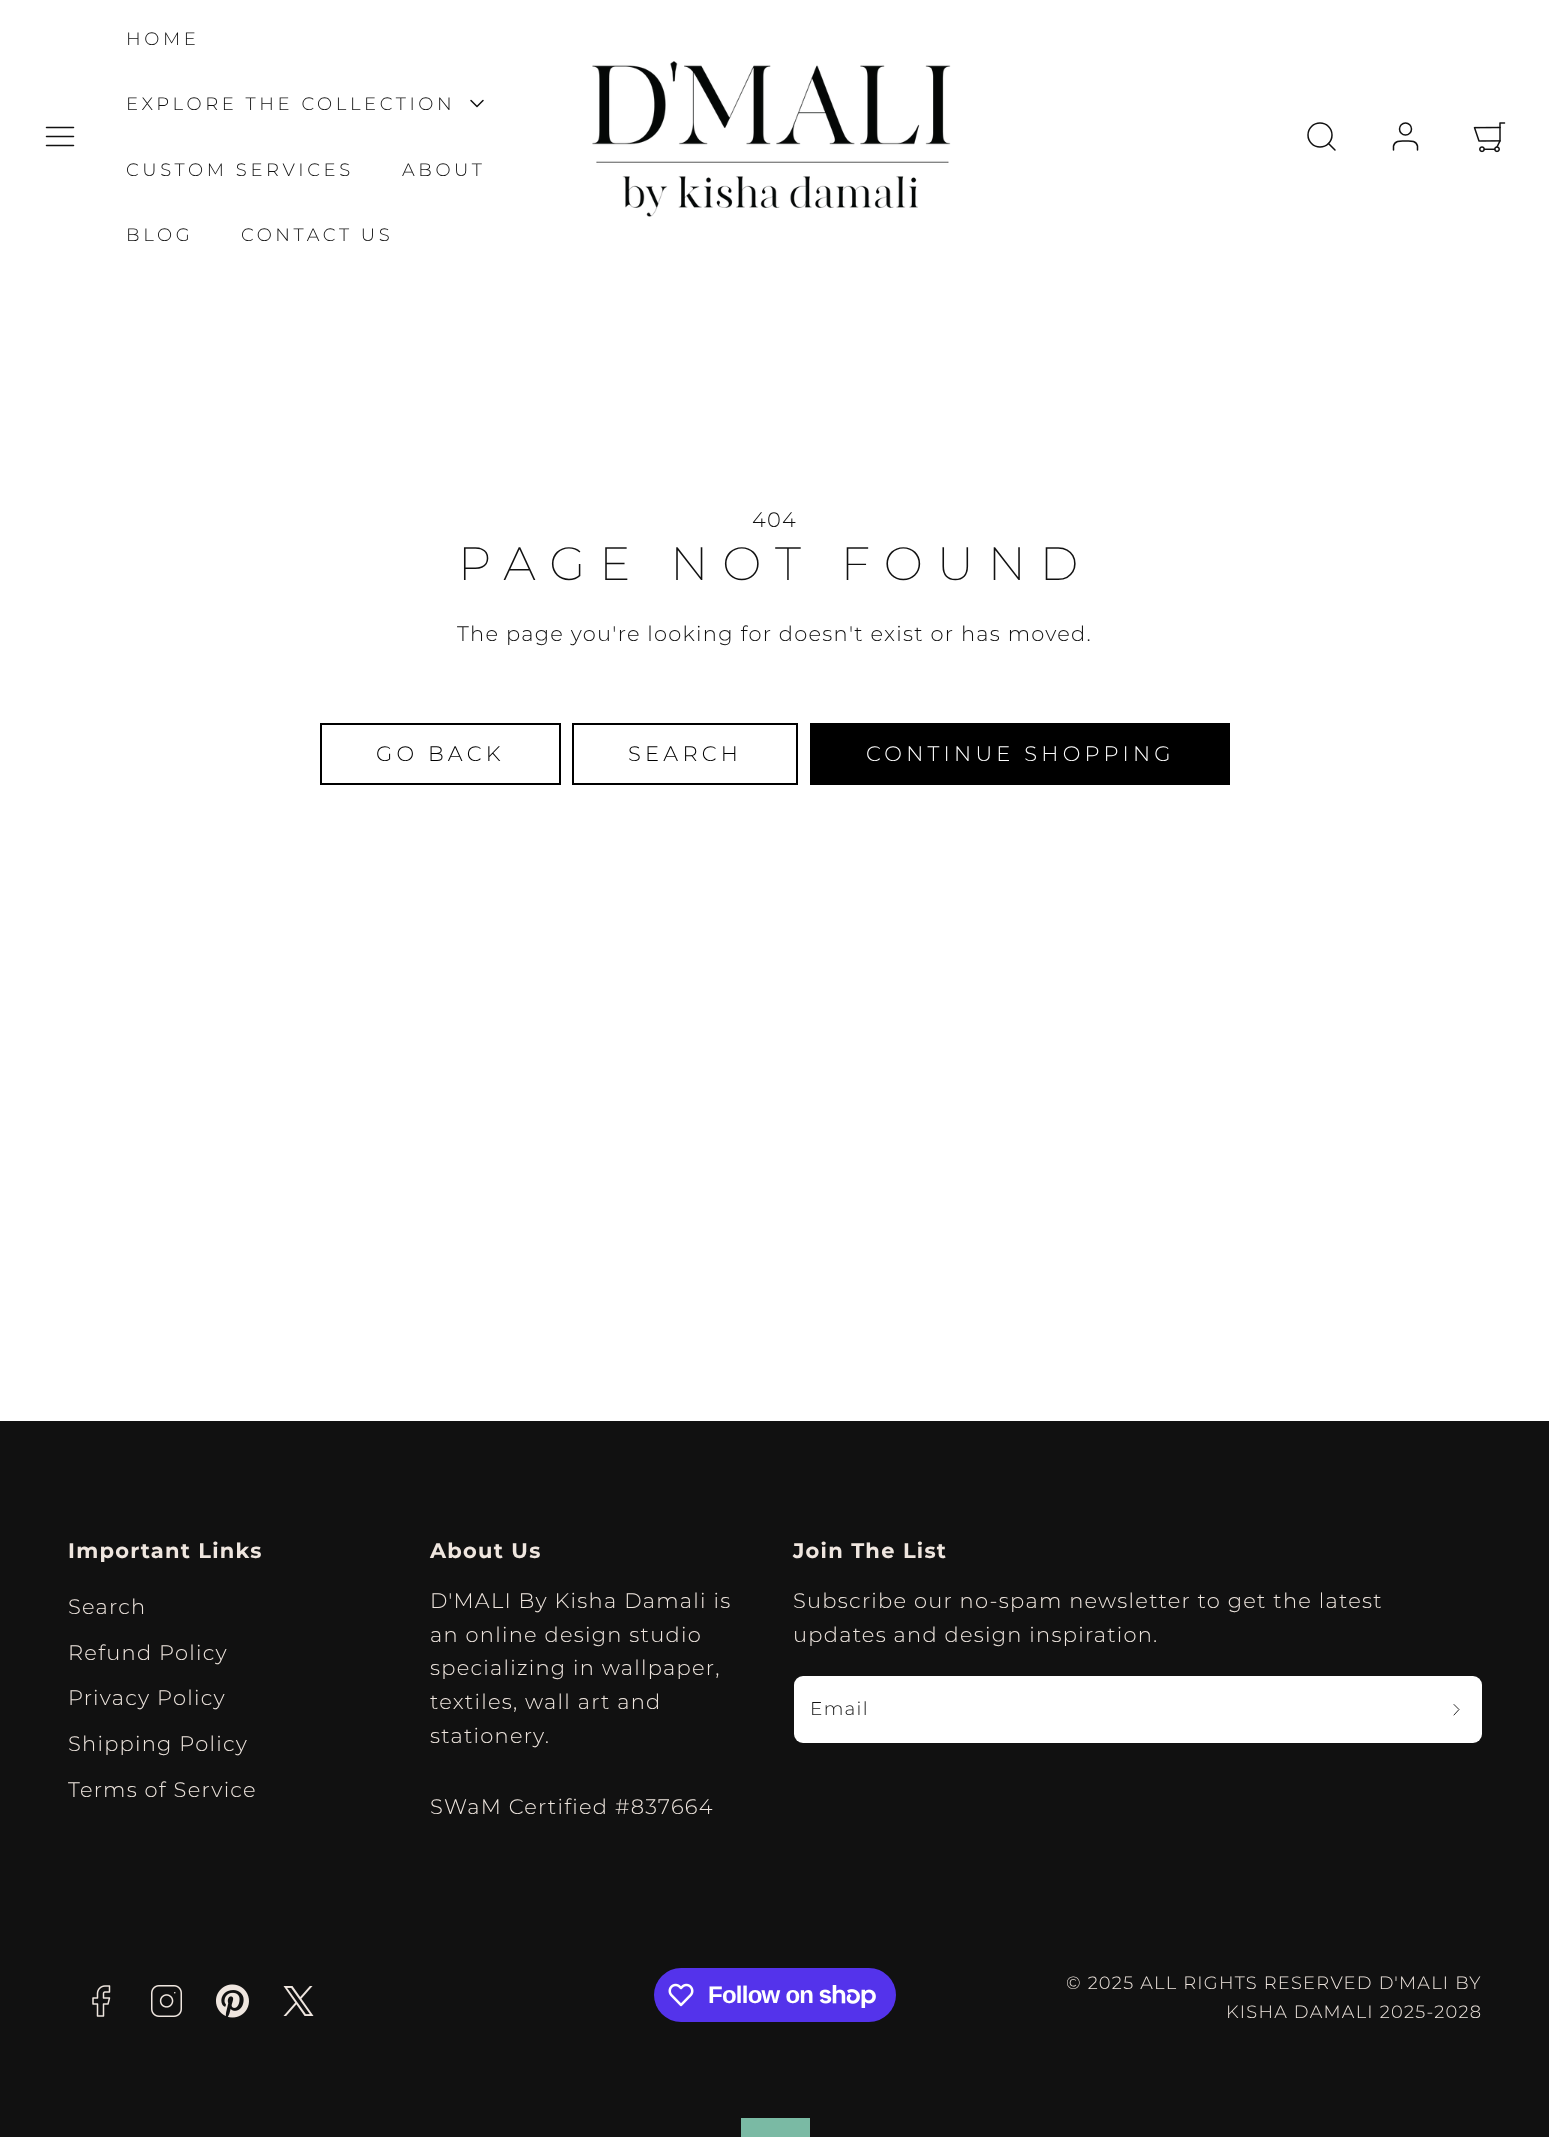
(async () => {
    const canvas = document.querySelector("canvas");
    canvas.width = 1549;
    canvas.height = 2137;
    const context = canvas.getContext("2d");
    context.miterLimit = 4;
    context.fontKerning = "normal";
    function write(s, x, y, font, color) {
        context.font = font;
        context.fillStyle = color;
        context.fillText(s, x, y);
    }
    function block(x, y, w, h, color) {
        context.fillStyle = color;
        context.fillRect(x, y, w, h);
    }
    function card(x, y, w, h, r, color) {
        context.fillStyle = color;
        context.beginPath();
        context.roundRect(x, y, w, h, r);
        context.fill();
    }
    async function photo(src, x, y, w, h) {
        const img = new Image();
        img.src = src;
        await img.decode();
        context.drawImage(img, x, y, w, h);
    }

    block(0, 0, 1549, 2137, "rgb(255, 255, 255)");
    context.beginPath();
    context.moveTo(46.5, 136.5);
    context.lineTo(73.5, 136.5);
    context.moveTo(46.5, 127.5);
    context.lineTo(73.5, 127.5);
    context.moveTo(46.5, 145.5);
    context.lineTo(73.5, 145.5);
    context.strokeStyle = "rgb(17, 17, 17)";
    context.lineWidth = 1.5;
    context.lineCap = "round";
    context.lineJoin = "round";
    context.stroke();
    context.letterSpacing = "3.6px";
    write("HOME", 126, 45, "300 18px Montserrat", "rgb(17, 17, 17)");
    write("EXPLORE THE COLLECTION", 126, 110, "300 18px Montserrat", "rgb(17, 17, 17)");
    context.beginPath();
    context.moveTo(471, 100.5);
    context.lineTo(477, 106.5);
    context.lineTo(483, 100.5);
    context.stroke();
    write("CUSTOM SERVICES", 126, 176, "300 18px Montserrat", "rgb(17, 17, 17)");
    write("ABOUT", 402, 176, "300 18px Montserrat", "rgb(17, 17, 17)");
    write("BLOG", 126, 241, "300 18px Montserrat", "rgb(17, 17, 17)");
    write("CONTACT US", 241, 241, "300 18px Montserrat", "rgb(17, 17, 17)");
    await photo("media/1.png", 592, 61, 359, 156);
    context.beginPath();
    context.arc(1320, 135, 12, 0, Math.PI * 2);
    context.stroke();
    context.beginPath();
    context.moveTo(1335, 150);
    context.lineTo(1328.5, 143.5);
    context.stroke();
    context.beginPath();
    context.moveTo(1417.5, 150);
    context.lineTo(1417.5, 146);
    context.bezierCurveTo(1416, 140, 1410, 141, 1405.5, 141);
    context.bezierCurveTo(1401, 141, 1395, 140, 1393.5, 146);
    context.lineTo(1393.5, 150);
    context.stroke();
    context.beginPath();
    context.arc(1405.5, 129, 6, 0, Math.PI * 2);
    context.stroke();
    await photo("media/2.png", 1473, 122, 33, 31);
    context.letterSpacing = "1.25px";
    write("404", 752, 527, "300 21px Montserrat", "rgb(17, 17, 17)");
    context.letterSpacing = "14px";
    write("PAGE NOT FOUND", 458, 580, "200 46.7px Montserrat", "rgb(17, 17, 17)");
    context.letterSpacing = "1.25px";
    write("The page you're looking for doesn't exist or has moved.", 457, 641, "300 21px Montserrat", "rgb(17, 17, 17)");
    context.strokeStyle = "rgb(0, 0, 0)";
    context.lineWidth = 2;
    context.lineJoin = "miter";
    context.strokeRect(321, 724, 239, 60);
    context.letterSpacing = "4.25px";
    write("GO BACK", 376, 761, "300 21px Montserrat", "rgb(0, 0, 0)");
    context.strokeRect(573, 724, 224, 60);
    write("SEARCH", 628, 761, "300 21px Montserrat", "rgb(0, 0, 0)");
    block(810, 723, 420, 62, "rgb(0, 0, 0)");
    write("CONTINUE SHOPPING", 866, 761, "300 21px Montserrat", "rgb(255, 255, 255)");
    block(0, 1421, 1549, 716, "rgb(17, 17, 17)");
    context.letterSpacing = "1.25px";
    write("Important Links", 68, 1558, "bold 21px Montserrat", "rgb(239, 230, 223)");
    write("Search", 68, 1614, "300 21px Montserrat", "rgb(239, 230, 223)");
    write("Refund Policy", 68, 1660, "300 21px Montserrat", "rgb(239, 230, 223)");
    write("Privacy Policy", 68, 1705, "300 21px Montserrat", "rgb(239, 230, 223)");
    write("Shipping Policy", 68, 1751, "300 21px Montserrat", "rgb(239, 230, 223)");
    write("Terms of Service", 68, 1797, "300 21px Montserrat", "rgb(239, 230, 223)");
    write("About Us", 430, 1558, "bold 21px Montserrat", "rgb(239, 230, 223)");
    write("D'MALI By Kisha Damali is", 430, 1608, "300 21px Montserrat", "rgb(239, 230, 223)");
    write("an online design studio", 430, 1642, "300 21px Montserrat", "rgb(239, 230, 223)");
    write("specializing in wallpaper,", 430, 1675, "300 21px Montserrat", "rgb(239, 230, 223)");
    write("textiles, wall art and", 430, 1709, "300 21px Montserrat", "rgb(239, 230, 223)");
    write("stationery.", 430, 1743, "300 21px Montserrat", "rgb(239, 230, 223)");
    write("SWaM Certified #837664", 430, 1814, "300 21px Montserrat", "rgb(239, 230, 223)");
    write("Join The List", 793, 1558, "bold 21px Montserrat", "rgb(239, 230, 223)");
    write("Subscribe our no-spam newsletter to get the latest", 793, 1608, "300 21px Montserrat", "rgb(239, 230, 223)");
    write("updates and design inspiration.", 793, 1642, "300 21px Montserrat", "rgb(239, 230, 223)");
    card(794, 1676, 688, 67, 9, "rgb(255, 255, 255)");
    write("Email", 810, 1715, "300 18.5px Montserrat", "rgb(17, 17, 17)");
    context.beginPath();
    context.moveTo(1454, 1715);
    context.lineTo(1459, 1709.5);
    context.lineTo(1454, 1704.5);
    context.strokeStyle = "rgb(17, 17, 17)";
    context.lineWidth = 0.9;
    context.lineJoin = "round";
    context.stroke();
    await photo("media/3.png", 92, 1985, 19, 32);
    await photo("media/4.png", 151, 1985, 31, 32);
    await photo("media/5.png", 216, 1984, 33, 34);
    await photo("media/6.png", 283, 1986, 31, 30);
    card(654, 1968, 242, 54, 27, "rgb(84, 51, 235)");
    await photo("media/7.png", 668, 1983, 26, 24);
    context.letterSpacing = "-0.75px";
    write("Follow on", 708, 2003, "bold 24px Liberation Sans", "rgb(255, 255, 255)");
    await photo("media/8.png", 819, 1985, 57, 23);
    context.letterSpacing = "1.25px";
    write("© 2025 ALL RIGHTS RESERVED D'MALI BY", 1066, 1989, "300 17.85px Montserrat", "rgb(239, 230, 223)");
    write("KISHA DAMALI 2025-2028", 1226, 2018, "300 17.85px Montserrat", "rgb(239, 230, 223)");
    block(741, 2118, 69, 19, "rgb(122, 186, 164)");
})();
